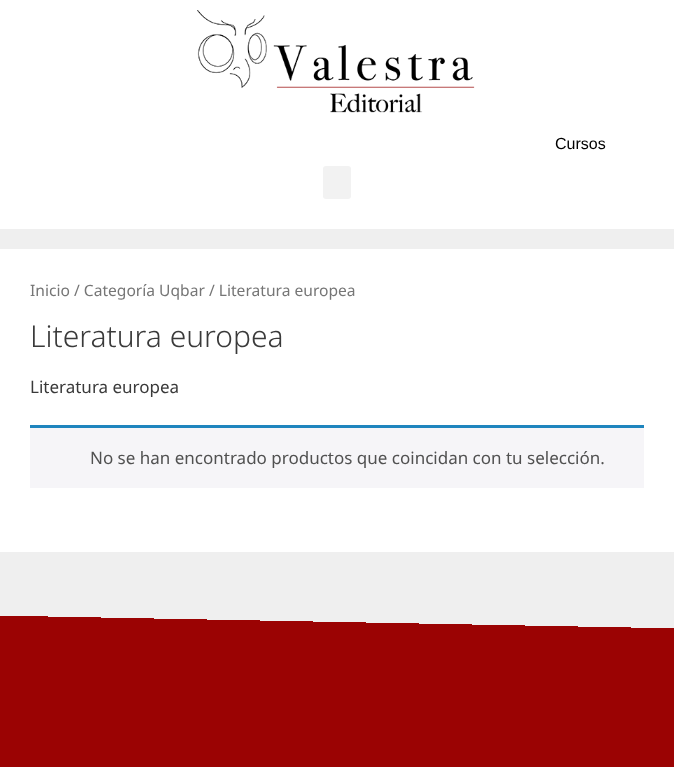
(async () => {
    const canvas = document.querySelector("canvas");
    canvas.width = 674;
    canvas.height = 767;
    const context = canvas.getContext("2d");
    context.miterLimit = 4;
    context.fontKerning = "normal";
    function write(s, x, y, font, color) {
        context.font = font;
        context.fillStyle = color;
        context.fillText(s, x, y);
    }
    function block(x, y, w, h, color) {
        context.fillStyle = color;
        context.fillRect(x, y, w, h);
    }
    function card(x, y, w, h, r, color) {
        context.fillStyle = color;
        context.beginPath();
        context.roundRect(x, y, w, h, r);
        context.fill();
    }
    async function photo(src, x, y, w, h) {
        const img = new Image();
        img.src = src;
        await img.decode();
        context.drawImage(img, x, y, w, h);
    }
    let gradient;

    block(0, 0, 674, 767, "rgb(239, 239, 239)");
    block(0, 0, 674, 229, "rgb(255, 255, 255)");
    await photo("media/1.png", 197, 10, 278, 103);
    write("Cursos", 555, 149, "16px Liberation Sans", "rgb(0, 0, 0)");
    card(323, 166, 28, 33, 3, "rgb(242, 242, 242)");
    block(0, 249, 674, 303, "rgb(255, 255, 255)");
    write("Inicio / Categoría Uqbar / Literatura europea", 30, 296, "15.6px Noto Sans", "rgb(118, 118, 118)");
    write("Literatura europea", 30, 347, "300 30px Noto Sans", "rgb(58, 58, 58)");
    write("Literatura europea", 30, 393, "17px Noto Sans", "rgb(58, 58, 58)");
    block(30, 428, 614, 60, "rgb(246, 245, 248)");
    block(30, 425, 614, 3, "rgb(30, 133, 190)");
    write("No se han encontrado productos que coincidan con tu selección.", 90, 464, "17px Noto Sans", "rgb(81, 81, 81)");
    gradient = context.createLinearGradient(342, 516, 332, 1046);
    gradient.addColorStop(0.2, "rgba(155, 3, 3, 0)");
    gradient.addColorStop(0.2, "rgb(155, 3, 3)");
    context.fillStyle = gradient;
    context.fillRect(0, 616, 674, 151);
})();
